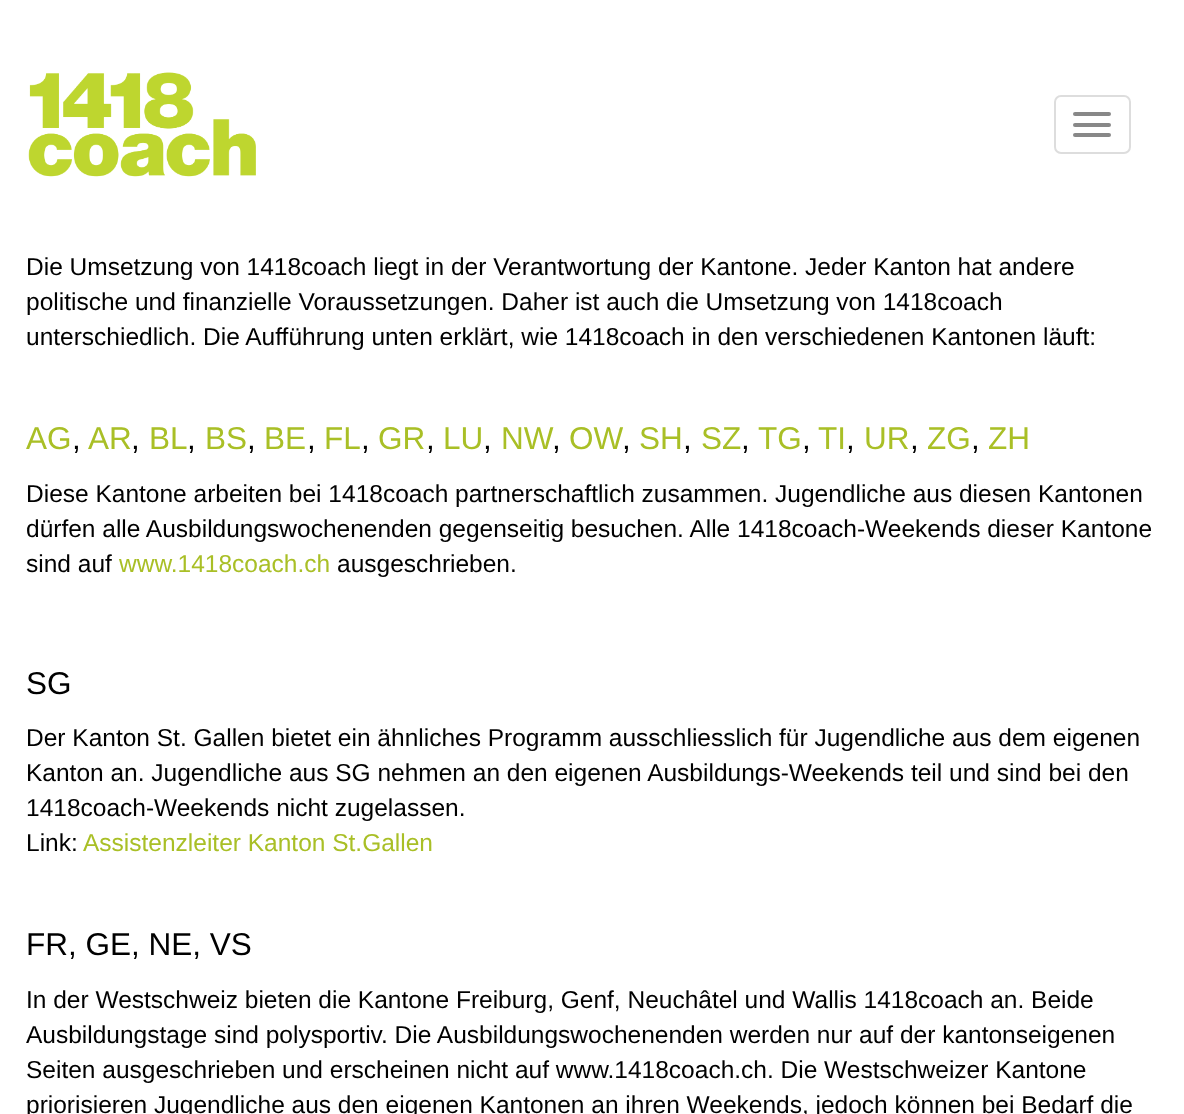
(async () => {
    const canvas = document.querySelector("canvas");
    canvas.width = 1184;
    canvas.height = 1114;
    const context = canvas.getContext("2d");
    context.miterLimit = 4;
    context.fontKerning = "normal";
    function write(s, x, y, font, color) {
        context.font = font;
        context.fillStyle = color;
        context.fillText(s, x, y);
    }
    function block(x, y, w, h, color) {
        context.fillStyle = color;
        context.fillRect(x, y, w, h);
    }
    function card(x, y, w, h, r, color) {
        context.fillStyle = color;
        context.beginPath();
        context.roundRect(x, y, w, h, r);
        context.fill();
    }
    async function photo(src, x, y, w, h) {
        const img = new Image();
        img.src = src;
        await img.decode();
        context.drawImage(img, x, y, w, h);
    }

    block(0, 0, 1184, 1114, "rgb(255, 255, 255)");
    await photo("media/1.png", 28, 72, 228, 105);
    context.beginPath();
    context.roundRect(1055, 96, 75, 57, 6);
    context.strokeStyle = "rgb(221, 221, 221)";
    context.lineWidth = 2;
    context.stroke();
    card(1073, 112, 38, 4, 2, "rgb(136, 136, 136)");
    card(1073, 123, 38, 4, 2, "rgb(136, 136, 136)");
    card(1073, 133, 38, 4, 2, "rgb(136, 136, 136)");
    write("Die Umsetzung von 1418coach liegt in der Verantwortung der Kantone. Jeder Kanton hat andere", 26, 275, "24.5px Liberation Sans", "rgb(0, 0, 0)");
    write("politische und finanzielle Voraussetzungen. Daher ist auch die Umsetzung von 1418coach", 26, 310, "24.5px Liberation Sans", "rgb(0, 0, 0)");
    write("unterschiedlich. Die Aufführung unten erklärt, wie 1418coach in den verschiedenen Kantonen läuft:", 26, 345, "24.5px Liberation Sans", "rgb(0, 0, 0)");
    write("AG", 26, 449, "31.5px Liberation Sans", "rgb(169, 191, 38)");
    write(",", 72, 449, "31.5px Liberation Sans", "rgb(0, 0, 0)");
    write("AR", 88, 449, "31.5px Liberation Sans", "rgb(169, 191, 38)");
    write(",", 131, 449, "31.5px Liberation Sans", "rgb(0, 0, 0)");
    write("BL", 149, 449, "31.5px Liberation Sans", "rgb(169, 191, 38)");
    write(",", 187, 449, "31.5px Liberation Sans", "rgb(0, 0, 0)");
    write("BS", 205, 449, "31.5px Liberation Sans", "rgb(169, 191, 38)");
    write(",", 247, 449, "31.5px Liberation Sans", "rgb(0, 0, 0)");
    write("BE", 264, 449, "31.5px Liberation Sans", "rgb(169, 191, 38)");
    write(",", 307, 449, "31.5px Liberation Sans", "rgb(0, 0, 0)");
    write("FL", 324, 449, "31.5px Liberation Sans", "rgb(169, 191, 38)");
    write(",", 361, 449, "31.5px Liberation Sans", "rgb(0, 0, 0)");
    write("GR", 378, 449, "31.5px Liberation Sans", "rgb(169, 191, 38)");
    write(",", 426, 449, "31.5px Liberation Sans", "rgb(0, 0, 0)");
    write("LU", 443, 449, "31.5px Liberation Sans", "rgb(169, 191, 38)");
    write(",", 483, 449, "31.5px Liberation Sans", "rgb(0, 0, 0)");
    write("NW", 501, 449, "31.5px Liberation Sans", "rgb(169, 191, 38)");
    write(",", 552, 449, "31.5px Liberation Sans", "rgb(0, 0, 0)");
    write("OW", 569, 449, "31.5px Liberation Sans", "rgb(169, 191, 38)");
    write(",", 622, 449, "31.5px Liberation Sans", "rgb(0, 0, 0)");
    write("SH", 639, 449, "31.5px Liberation Sans", "rgb(169, 191, 38)");
    write(",", 683, 449, "31.5px Liberation Sans", "rgb(0, 0, 0)");
    write("SZ", 701, 449, "31.5px Liberation Sans", "rgb(169, 191, 38)");
    write(",", 741, 449, "31.5px Liberation Sans", "rgb(0, 0, 0)");
    write("TG", 758, 449, "31.5px Liberation Sans", "rgb(169, 191, 38)");
    write(",", 802, 449, "31.5px Liberation Sans", "rgb(0, 0, 0)");
    write("TI", 818, 449, "31.5px Liberation Sans", "rgb(169, 191, 38)");
    write(",", 846, 449, "31.5px Liberation Sans", "rgb(0, 0, 0)");
    write("UR", 864, 449, "31.5px Liberation Sans", "rgb(169, 191, 38)");
    write(",", 910, 449, "31.5px Liberation Sans", "rgb(0, 0, 0)");
    write("ZG", 927, 449, "31.5px Liberation Sans", "rgb(169, 191, 38)");
    write(",", 971, 449, "31.5px Liberation Sans", "rgb(0, 0, 0)");
    write("ZH", 988, 449, "31.5px Liberation Sans", "rgb(169, 191, 38)");
    write("Diese Kantone arbeiten bei 1418coach partnerschaftlich zusammen. Jugendliche aus diesen Kantonen", 26, 502, "24.5px Liberation Sans", "rgb(0, 0, 0)");
    write("dürfen alle Ausbildungswochenenden gegenseitig besuchen. Alle 1418coach-Weekends dieser Kantone", 26, 537, "24.5px Liberation Sans", "rgb(0, 0, 0)");
    write("sind auf", 26, 572, "24.5px Liberation Sans", "rgb(0, 0, 0)");
    write("www.1418coach.ch", 119, 572, "24.5px Liberation Sans", "rgb(169, 191, 38)");
    write("ausgeschrieben.", 337, 572, "24.5px Liberation Sans", "rgb(0, 0, 0)");
    write("SG", 26, 694, "31.5px Liberation Sans", "rgb(0, 0, 0)");
    write("Der Kanton St. Gallen bietet ein ähnliches Programm ausschliesslich für Jugendliche aus dem eigenen", 26, 746, "24.5px Liberation Sans", "rgb(0, 0, 0)");
    write("Kanton an. Jugendliche aus SG nehmen an den eigenen Ausbildungs-Weekends teil und sind bei den", 26, 781, "24.5px Liberation Sans", "rgb(0, 0, 0)");
    write("1418coach-Weekends nicht zugelassen.", 26, 816, "24.5px Liberation Sans", "rgb(0, 0, 0)");
    write("Link:", 26, 851, "24.5px Liberation Sans", "rgb(0, 0, 0)");
    write("Assistenzleiter Kanton St.Gallen", 83, 851, "24.5px Liberation Sans", "rgb(169, 191, 38)");
    write("FR, GE, NE, VS", 26, 955, "31.5px Liberation Sans", "rgb(0, 0, 0)");
    write("In der Westschweiz bieten die Kantone Freiburg, Genf, Neuchâtel und Wallis 1418coach an. Beide", 26, 1008, "24.5px Liberation Sans", "rgb(0, 0, 0)");
    write("Ausbildungstage sind polysportiv. Die Ausbildungswochenenden werden nur auf der kantonseigenen", 26, 1043, "24.5px Liberation Sans", "rgb(0, 0, 0)");
    write("Seiten ausgeschrieben und erscheinen nicht auf www.1418coach.ch. Die Westschweizer Kantone", 26, 1078, "24.5px Liberation Sans", "rgb(0, 0, 0)");
    write("priorisieren Jugendliche aus den eigenen Kantonen an ihren Weekends, jedoch können bei Bedarf die", 26, 1113, "24.5px Liberation Sans", "rgb(0, 0, 0)");
})();
